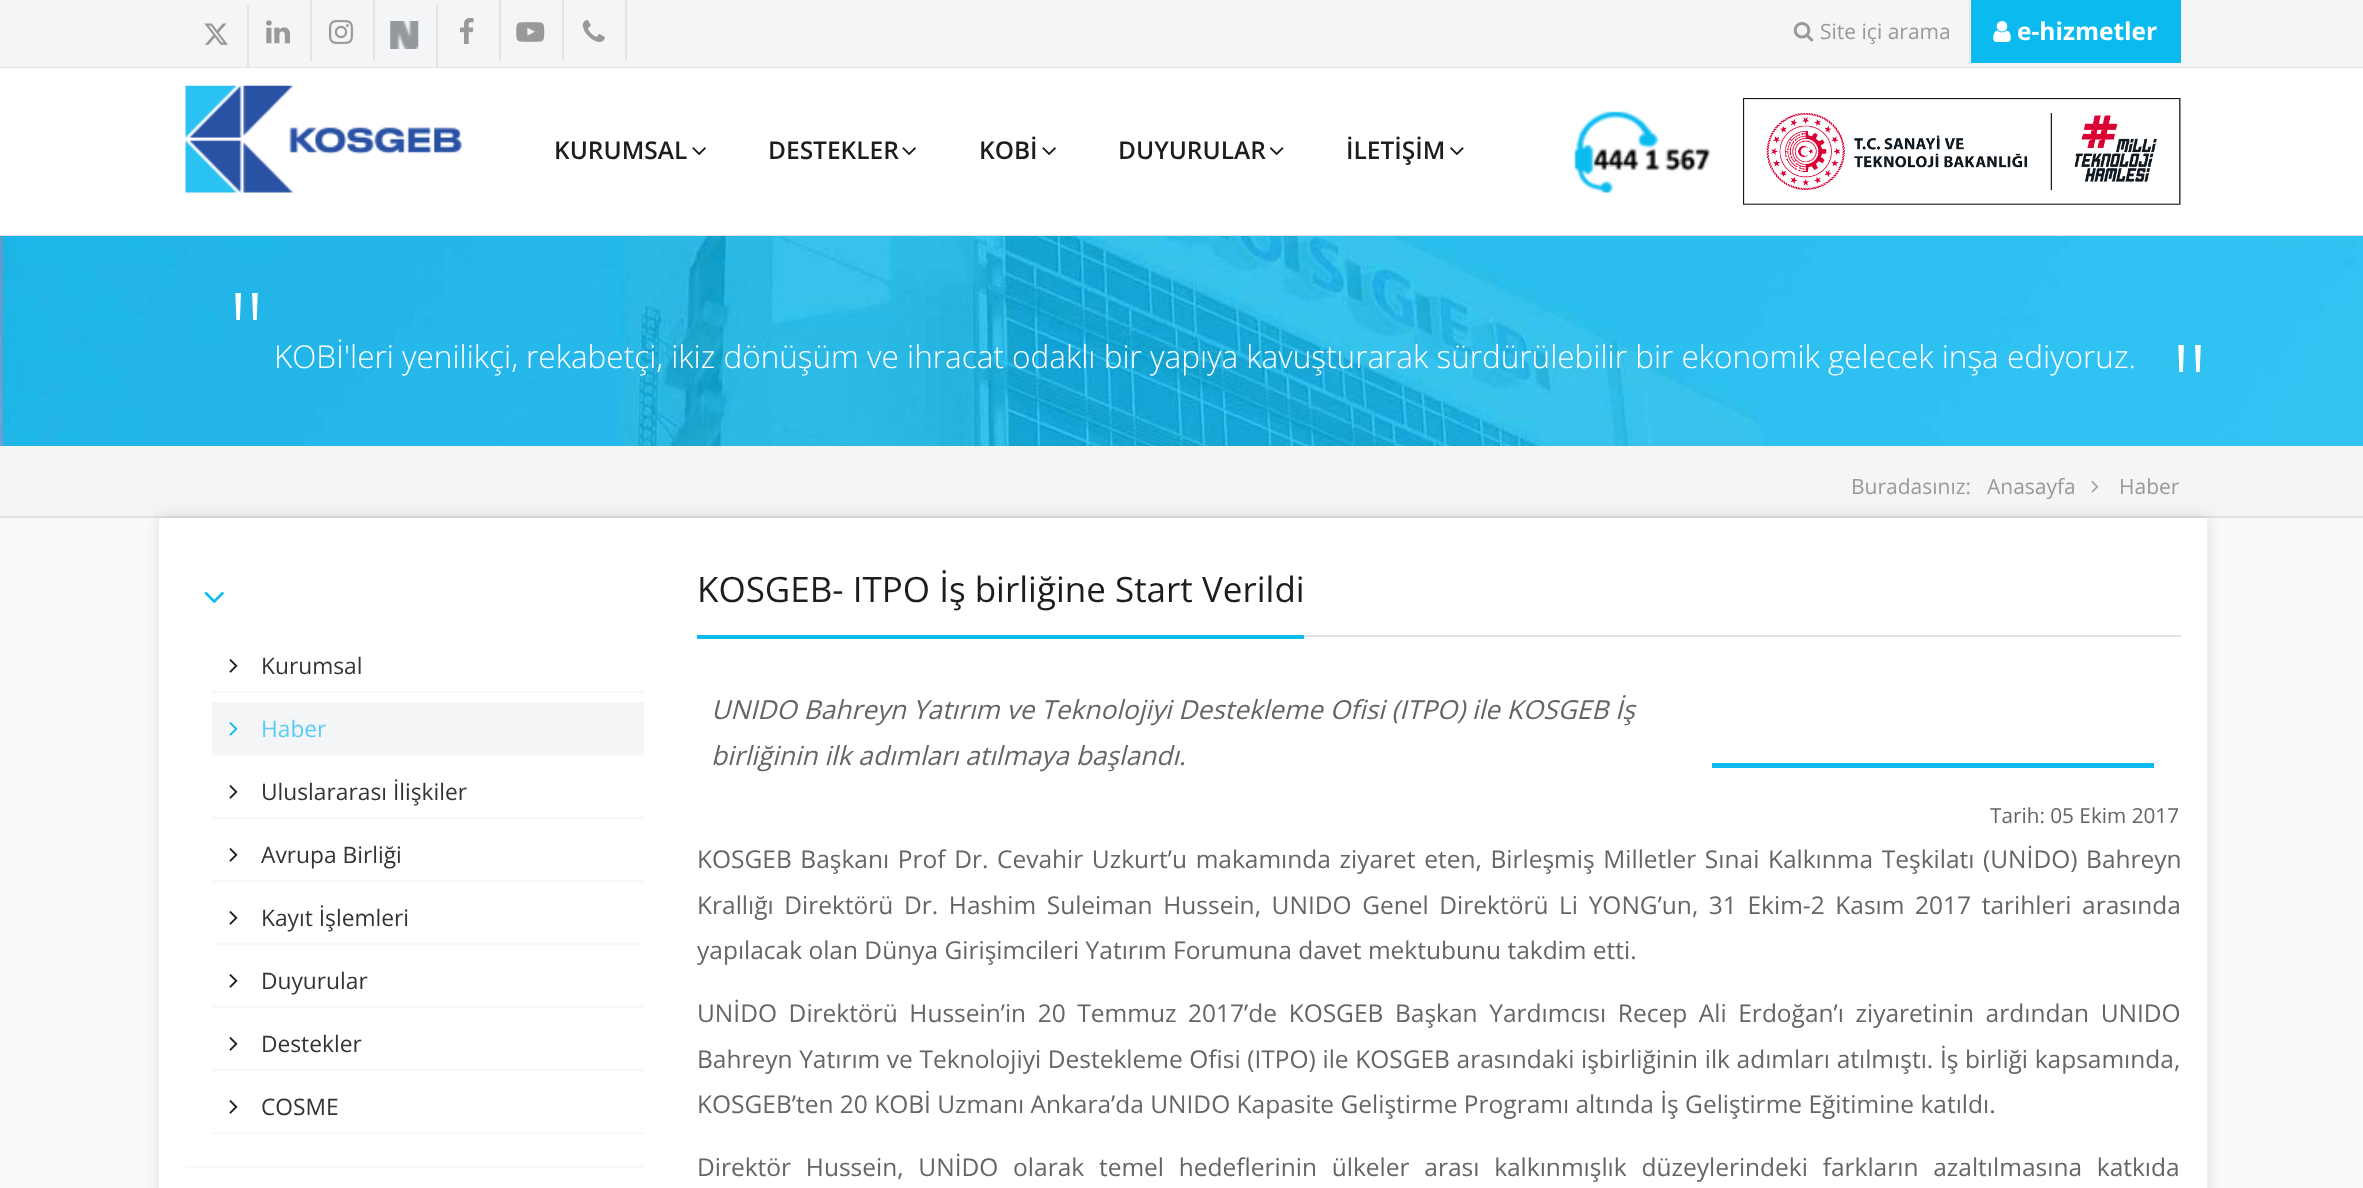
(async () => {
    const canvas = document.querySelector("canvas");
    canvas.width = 2363;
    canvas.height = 1188;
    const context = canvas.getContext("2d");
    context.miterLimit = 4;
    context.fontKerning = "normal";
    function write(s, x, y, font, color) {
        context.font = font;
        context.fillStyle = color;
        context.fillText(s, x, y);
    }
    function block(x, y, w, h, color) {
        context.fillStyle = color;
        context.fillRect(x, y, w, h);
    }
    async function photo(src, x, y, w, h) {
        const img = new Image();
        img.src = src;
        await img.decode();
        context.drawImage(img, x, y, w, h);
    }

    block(0, 0, 2363, 1188, "rgb(244, 245, 247)");
    block(0, 67, 2363, 1, "rgb(226, 226, 226)");
    block(247, 5, 2, 62, "rgb(227, 227, 227)");
    await photo("media/1.png", 204, 23, 24, 22);
    block(310, 0, 2, 61, "rgb(227, 227, 227)");
    await photo("media/2.png", 266, 20, 24, 24);
    block(373, 0, 2, 61, "rgb(227, 227, 227)");
    await photo("media/3.png", 329, 20, 24, 24);
    block(436, 5, 2, 62, "rgb(227, 227, 227)");
    await photo("media/4.png", 390, 21, 29, 28);
    block(499, 0, 2, 61, "rgb(227, 227, 227)");
    await photo("media/5.png", 460, 18, 14, 26);
    block(562, 0, 2, 61, "rgb(227, 227, 227)");
    await photo("media/6.png", 516, 22, 29, 20);
    block(625, 0, 2, 61, "rgb(227, 227, 227)");
    await photo("media/7.png", 582, 20, 23, 22);
    context.beginPath();
    context.moveTo(1970, 0);
    context.lineTo(1970, 63);
    context.lineTo(1969, 61);
    context.lineTo(1969, 2);
    context.closePath();
    context.fill();
    await photo("media/8.png", 1793, 22, 21, 20);
    write("Site içi arama", 1820, 39, "21px Open Sans", "rgb(153, 153, 153)");
    block(1971, 0, 210, 63, "rgb(11, 187, 239)");
    await photo("media/9.png", 1993, 21, 18, 21);
    write("e-hizmetler", 2017, 40, "bold 24.5px Open Sans", "rgb(255, 255, 255)");
    block(0, 68, 2363, 167, "rgb(255, 255, 255)");
    block(0, 235, 2363, 1, "rgb(226, 226, 226)");
    await photo("media/10.png", 185, 85, 277, 108);
    write("KURUMSAL", 554, 159, "600 24.5px Open Sans", "rgb(29, 29, 29)");
    await photo("media/11.png", 692, 147, 14, 9);
    write("DESTEKLER", 768, 159, "600 24.5px Open Sans", "rgb(29, 29, 29)");
    await photo("media/11.png", 902, 147, 14, 9);
    write("KOBİ", 979, 159, "600 24.5px Open Sans", "rgb(29, 29, 29)");
    await photo("media/11.png", 1042, 147, 14, 9);
    write("DUYURULAR", 1118, 159, "600 24.5px Open Sans", "rgb(29, 29, 29)");
    await photo("media/12.png", 1269, 147, 15, 9);
    write("İLETİŞİM", 1346, 159, "600 24.5px Open Sans", "rgb(29, 29, 29)");
    await photo("media/13.png", 1450, 147, 14, 9);
    await photo("media/14.png", 1574, 111, 137, 82);
    await photo("media/15.png", 1743, 98, 438, 107);
    await photo("media/16.png", 0, 236, 2363, 210);
    write("\"", 228, 368, "300 105px Open Sans", "rgb(255, 255, 255)");
    write("KOBİ'leri yenilikçi, rekabetçi, ikiz dönüşüm ve ihracat odaklı bir yapıya kavuşturarak sürdürülebilir bir ekonomik gelecek inşa ediyoruz.", 274, 368, "300 31.5px Open Sans", "rgb(255, 255, 255)");
    write("\"", 2171, 420, "300 105px Open Sans", "rgb(255, 255, 255)");
    block(0, 518, 2363, 670, "rgb(250, 250, 250)");
    block(0, 516, 2363, 2, "rgb(226, 226, 226)");
    context.fillStyle = "rgba(86, 86, 86, 0.15)";
    context.filter = "blur(7px)";
    context.beginPath();
    context.rect(158, 515, 2051, 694);
    context.fill();
    context.filter = "none";
    write("Buradasınız:", 1851, 494, "21px Open Sans", "rgb(153, 153, 153)");
    write("Anasayfa", 1987, 494, "21px Open Sans", "rgb(153, 153, 153)");
    await photo("media/17.png", 2091, 481, 8, 12);
    write("Haber", 2119, 494, "21px Open Sans", "rgb(153, 153, 153)");
    block(159, 518, 2048, 670, "rgb(255, 255, 255)");
    block(186, 1166, 458, 2, "rgb(248, 248, 248)");
    await photo("media/18.png", 204, 591, 20, 13);
    block(212, 691, 432, 2, "rgb(248, 248, 248)");
    await photo("media/19.png", 229, 659, 9, 14);
    write("Kurumsal", 261, 674, "22.75px Open Sans", "rgb(51, 51, 51)");
    block(212, 702, 432, 52, "rgb(244, 245, 247)");
    block(212, 754, 432, 2, "rgb(248, 248, 248)");
    await photo("media/20.png", 229, 722, 9, 14);
    write("Haber", 261, 737, "22.75px Open Sans", "rgb(89, 204, 245)");
    block(212, 817, 432, 2, "rgb(248, 248, 248)");
    await photo("media/19.png", 229, 785, 9, 14);
    write("Uluslararası İlişkiler", 261, 800, "22.75px Open Sans", "rgb(51, 51, 51)");
    block(212, 880, 432, 2, "rgb(248, 248, 248)");
    await photo("media/19.png", 229, 848, 9, 14);
    write("Avrupa Birliği", 261, 863, "22.75px Open Sans", "rgb(51, 51, 51)");
    block(212, 943, 432, 2, "rgb(248, 248, 248)");
    await photo("media/19.png", 229, 911, 9, 14);
    write("Kayıt İşlemleri", 261, 926, "22.75px Open Sans", "rgb(51, 51, 51)");
    block(212, 1006, 432, 2, "rgb(248, 248, 248)");
    await photo("media/19.png", 229, 974, 9, 14);
    write("Duyurular", 261, 989, "22.75px Open Sans", "rgb(51, 51, 51)");
    block(212, 1069, 432, 2, "rgb(248, 248, 248)");
    await photo("media/19.png", 229, 1037, 9, 14);
    write("Destekler", 261, 1052, "22.75px Open Sans", "rgb(51, 51, 51)");
    block(212, 1132, 432, 2, "rgb(248, 248, 248)");
    await photo("media/19.png", 229, 1100, 9, 14);
    write("COSME", 261, 1115, "22.75px Open Sans", "rgb(51, 51, 51)");
    block(1304, 635, 877, 2, "rgb(226, 226, 226)");
    block(697, 635, 607, 4, "rgb(11, 187, 239)");
    write("KOSGEB- ITPO İş birliğine Start Verildi", 697, 602, "35px Open Sans", "rgb(29, 29, 29)");
    write("UNIDO Bahreyn Yatırım ve Teknolojiyi Destekleme Ofisi (ITPO) ile KOSGEB İş", 711, 719, "italic 26.25px Open Sans", "rgb(101, 101, 101)");
    write("birliğinin ilk adımları atılmaya başlandı.", 711, 765, "italic 26.25px Open Sans", "rgb(101, 101, 101)");
    write("Tarih: 05 Ekim 2017", 1990, 823, "20.75px Open Sans", "rgb(101, 101, 101)");
    context.wordSpacing = "2.25px";
    write("KOSGEB Başkanı Prof Dr. Cevahir Uzkurt’u makamında ziyaret eten, Birleşmiş Milletler Sınai Kalkınma Teşkilatı (UNİDO) Bahreyn", 697, 868, "24.5px Open Sans", "rgb(101, 101, 101)");
    context.wordSpacing = "4.25px";
    write("Krallığı Direktörü Dr. Hashim Suleiman Hussein, UNIDO Genel Direktörü Li YONG’un, 31 Ekim-2 Kasım 2017 tarihleri arasında", 697, 914, "24.5px Open Sans", "rgb(101, 101, 101)");
    context.wordSpacing = "0px";
    write("yapılacak olan Dünya Girişimcileri Yatırım Forumuna davet mektubunu takdim etti.", 697, 959, "24.5px Open Sans", "rgb(101, 101, 101)");
    context.wordSpacing = "5.25px";
    write("UNİDO Direktörü Hussein’in 20 Temmuz 2017’de KOSGEB Başkan Yardımcısı Recep Ali Erdoğan’ı ziyaretinin ardından UNIDO", 697, 1022, "24.5px Open Sans", "rgb(101, 101, 101)");
    context.wordSpacing = "0.25px";
    write("Bahreyn Yatırım ve Teknolojiyi Destekleme Ofisi (ITPO) ile KOSGEB arasındaki işbirliğinin ilk adımları atılmıştı. İş birliği kapsamında,", 697, 1068, "24.5px Open Sans", "rgb(101, 101, 101)");
    context.wordSpacing = "0px";
    write("KOSGEB’ten 20 KOBİ Uzmanı Ankara’da UNIDO Kapasite Geliştirme Programı altında İş Geliştirme Eğitimine katıldı.", 697, 1113, "24.5px Open Sans", "rgb(101, 101, 101)");
    context.wordSpacing = "8.4px";
    write("Direktör Hussein, UNİDO olarak temel hedeflerinin ülkeler arası kalkınmışlık düzeylerindeki farkların azaltılmasına katkıda", 697, 1176, "24.5px Open Sans", "rgb(101, 101, 101)");
    block(1712, 763, 442, 5, "rgb(11, 187, 239)");
})();
